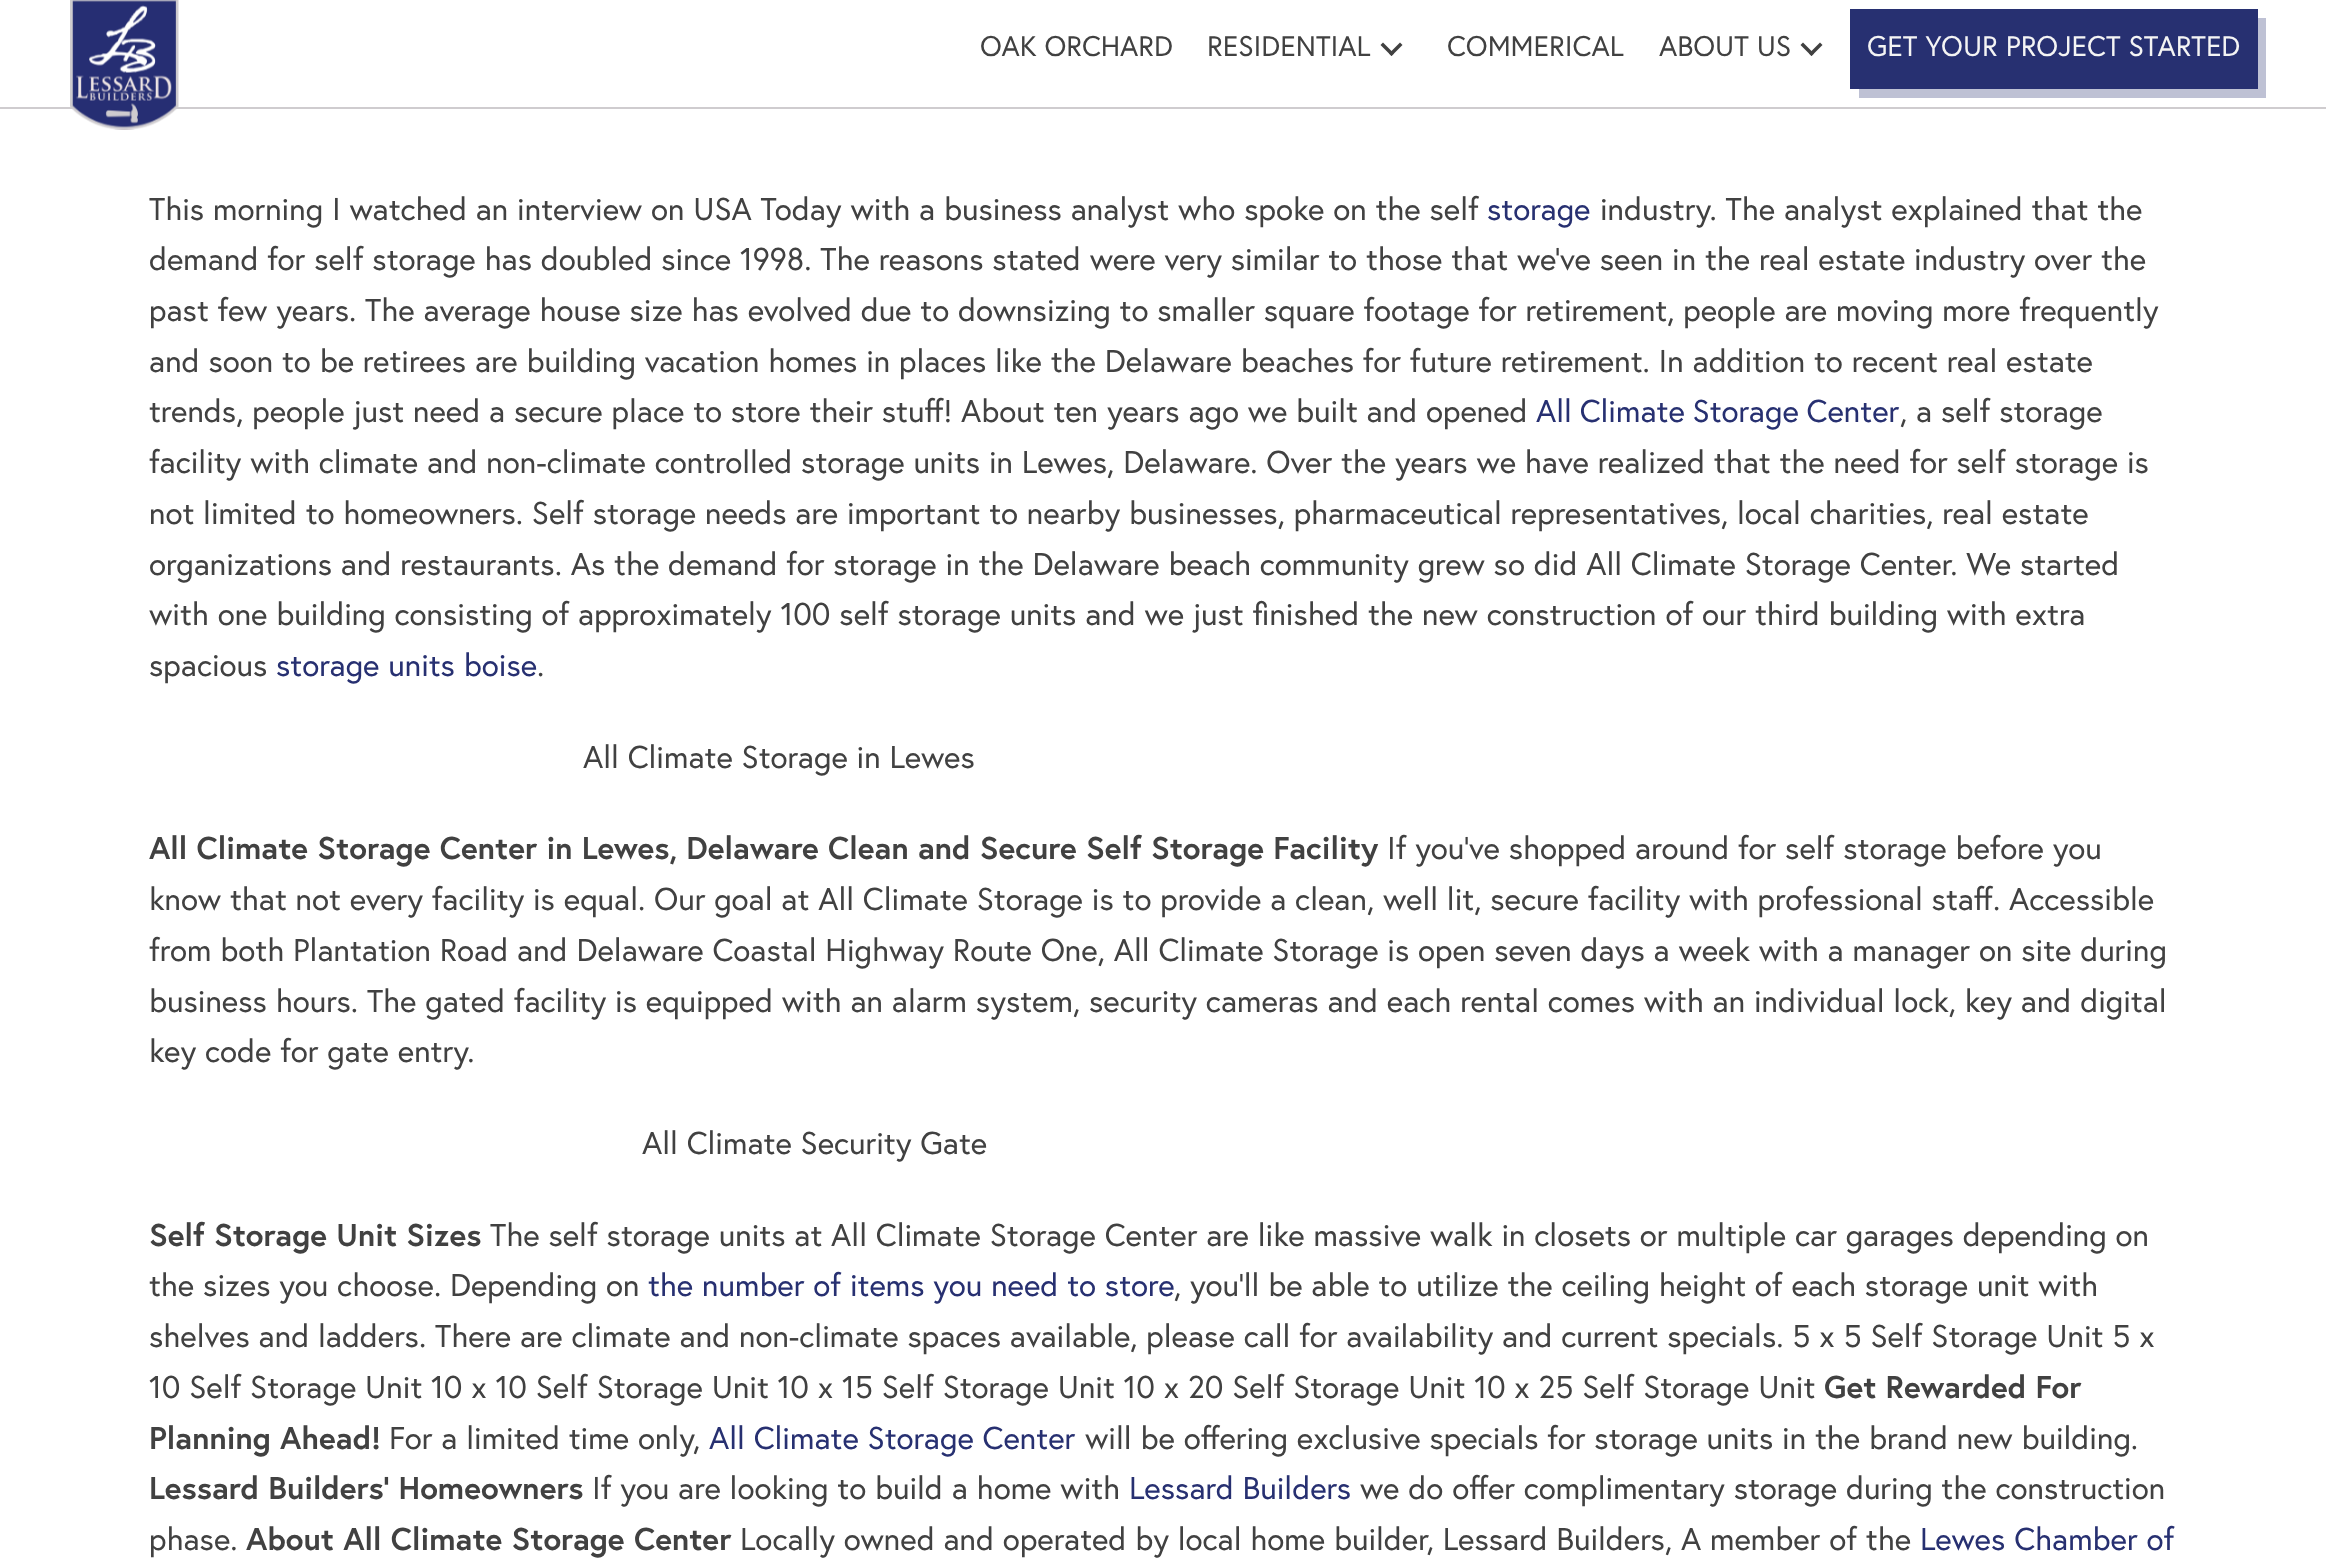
(async () => {
    const canvas = document.querySelector("canvas");
    canvas.width = 2326;
    canvas.height = 1560;
    const context = canvas.getContext("2d");
    context.miterLimit = 4;
    context.fontKerning = "normal";
    function write(s, x, y, font, color) {
        context.font = font;
        context.fillStyle = color;
        context.fillText(s, x, y);
    }
    function block(x, y, w, h, color) {
        context.fillStyle = color;
        context.fillRect(x, y, w, h);
    }
    async function photo(src, x, y, w, h) {
        const img = new Image();
        img.src = src;
        await img.decode();
        context.drawImage(img, x, y, w, h);
    }

    block(0, 0, 2326, 1560, "rgb(255, 255, 255)");
    block(0, 107, 2326, 2, "rgb(207, 204, 207)");
    await photo("media/1.png", 70, 0, 109, 130);
    write("OAK ORCHARD", 980, 56, "28.4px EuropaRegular", "rgb(65, 65, 65)");
    write("RESIDENTIAL", 1207, 56, "28.4px EuropaRegular", "rgb(65, 65, 65)");
    context.beginPath();
    context.moveTo(1400, 42.5);
    context.lineTo(1402.5, 45);
    context.lineTo(1391.5, 56);
    context.lineTo(1389, 53.5);
    context.closePath();
    context.fill();
    context.beginPath();
    context.moveTo(1383, 42.5);
    context.lineTo(1394, 53.5);
    context.lineTo(1391.5, 56);
    context.lineTo(1380.5, 45);
    context.closePath();
    context.fill();
    write("COMMERICAL", 1447, 56, "28.4px EuropaRegular", "rgb(65, 65, 65)");
    write("ABOUT US", 1659, 56, "28.4px EuropaRegular", "rgb(65, 65, 65)");
    context.beginPath();
    context.moveTo(1820, 42.5);
    context.lineTo(1822.5, 45);
    context.lineTo(1811.5, 56);
    context.lineTo(1809, 53.5);
    context.closePath();
    context.fill();
    context.beginPath();
    context.moveTo(1803, 42.5);
    context.lineTo(1814, 53.5);
    context.lineTo(1811.5, 56);
    context.lineTo(1800.5, 45);
    context.closePath();
    context.fill();
    context.fillStyle = "rgb(190, 193, 212)";
    context.beginPath();
    context.moveTo(1859, 89);
    context.lineTo(1859, 98);
    context.lineTo(2266, 98);
    context.lineTo(2266, 18);
    context.lineTo(2258, 18);
    context.lineTo(2258, 89);
    context.closePath();
    context.fill();
    block(1850, 9, 408, 80, "rgb(39, 48, 113)");
    write("GET YOUR PROJECT STARTED", 1867, 56, "28.4px EuropaRegular", "rgb(244, 244, 244)");
    write("This morning I watched an interview on USA Today with a business analyst who spoke on the self", 149, 220, "31.5px EuropaRegular", "rgb(65, 65, 65)");
    write("storage", 1487, 220, "31.5px EuropaRegular", "rgb(39, 48, 113)");
    write("industry. The analyst explained that the", 1600, 220, "31.5px EuropaRegular", "rgb(65, 65, 65)");
    write("demand for self storage has doubled since 1998. The reasons stated were very similar to those that we’ve seen in the real estate industry over the", 149, 270, "31.5px EuropaRegular", "rgb(65, 65, 65)");
    write("past few years. The average house size has evolved due to downsizing to smaller square footage for retirement, people are moving more frequently", 149, 321, "31.5px EuropaRegular", "rgb(65, 65, 65)");
    write("and soon to be retirees are building vacation homes in places like the Delaware beaches for future retirement. In addition to recent real estate", 149, 372, "31.5px EuropaRegular", "rgb(65, 65, 65)");
    write("trends, people just need a secure place to store their stuff! About ten years ago we built and opened", 149, 422, "31.5px EuropaRegular", "rgb(65, 65, 65)");
    context.wordSpacing = "-1px";
    write("All Climate Storage Center", 1536, 422, "31.5px EuropaRegular", "rgb(39, 48, 113)");
    context.wordSpacing = "0px";
    write(", a self storage", 1900, 422, "31.5px EuropaRegular", "rgb(65, 65, 65)");
    write("facility with climate and non-climate controlled storage units in Lewes, Delaware. Over the years we have realized that the need for self storage is", 149, 473, "31.5px EuropaRegular", "rgb(65, 65, 65)");
    write("not limited to homeowners. Self storage needs are important to nearby businesses, pharmaceutical representatives, local charities, real estate", 149, 524, "31.5px EuropaRegular", "rgb(65, 65, 65)");
    write("organizations and restaurants. As the demand for storage in the Delaware beach community grew so did All Climate Storage Center. We started", 149, 575, "31.5px EuropaRegular", "rgb(65, 65, 65)");
    write("with one building consisting of approximately 100 self storage units and we just finished the new construction of our third building with extra", 149, 625, "31.5px EuropaRegular", "rgb(65, 65, 65)");
    write("spacious", 149, 676, "31.5px EuropaRegular", "rgb(65, 65, 65)");
    write("storage units boise", 276, 676, "31.5px EuropaRegular", "rgb(39, 48, 113)");
    write(".", 537, 676, "31.5px EuropaRegular", "rgb(65, 65, 65)");
    write("All Climate Storage in Lewes", 583, 768, "31.5px EuropaRegular", "rgb(65, 65, 65)");
    write("All Climate Storage Center in Lewes, Delaware", 149, 859, "bold 31.5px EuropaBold", "rgb(65, 65, 65)");
    write("Clean and Secure Self Storage Facility", 828, 859, "bold 31.5px EuropaBold", "rgb(65, 65, 65)");
    write("If you’ve shopped around for self storage before you", 1387, 859, "31.5px EuropaRegular", "rgb(65, 65, 65)");
    write("know that not every facility is equal. Our goal at All Climate Storage is to provide a clean, well lit, secure facility with professional staff. Accessible", 149, 910, "31.5px EuropaRegular", "rgb(65, 65, 65)");
    write("from both Plantation Road and Delaware Coastal Highway Route One, All Climate Storage is open seven days a week with a manager on site during", 149, 961, "31.5px EuropaRegular", "rgb(65, 65, 65)");
    write("business hours. The gated facility is equipped with an alarm system, security cameras and each rental comes with an individual lock, key and digital", 149, 1012, "31.5px EuropaRegular", "rgb(65, 65, 65)");
    write("key code for gate entry.", 149, 1062, "31.5px EuropaRegular", "rgb(65, 65, 65)");
    write("All Climate Security Gate", 642, 1154, "31.5px EuropaRegular", "rgb(65, 65, 65)");
    write("Self Storage Unit Sizes", 149, 1246, "bold 31.5px EuropaBold", "rgb(65, 65, 65)");
    write("The self storage units at All Climate Storage Center are like massive walk in closets or multiple car garages depending on", 490, 1246, "31.5px EuropaRegular", "rgb(65, 65, 65)");
    write("the sizes you choose. Depending on", 149, 1296, "31.5px EuropaRegular", "rgb(65, 65, 65)");
    write("the number of items you need to store", 648, 1296, "31.5px EuropaRegular", "rgb(39, 48, 113)");
    write(", you’ll be able to utilize the ceiling height of each storage unit with", 1174, 1296, "31.5px EuropaRegular", "rgb(65, 65, 65)");
    write("shelves and ladders. There are climate and non-climate spaces available, please call for availability and current specials. 5 x 5 Self Storage Unit 5 x", 149, 1347, "31.5px EuropaRegular", "rgb(65, 65, 65)");
    write("10 Self Storage Unit 10 x 10 Self Storage Unit 10 x 15 Self Storage Unit 10 x 20 Self Storage Unit 10 x 25 Self Storage Unit", 149, 1398, "31.5px EuropaRegular", "rgb(65, 65, 65)");
    write("Get Rewarded For", 1824, 1398, "bold 31.5px EuropaBold", "rgb(65, 65, 65)");
    write("Planning Ahead!", 149, 1449, "bold 31.5px EuropaBold", "rgb(65, 65, 65)");
    write("For a limited time only,", 389, 1449, "31.5px EuropaRegular", "rgb(65, 65, 65)");
    write("All Climate Storage Center", 709, 1449, "31.5px EuropaRegular", "rgb(39, 48, 113)");
    write("will be offering exclusive specials for storage units in the brand new building.", 1085, 1449, "31.5px EuropaRegular", "rgb(65, 65, 65)");
    write("Lessard Builders’ Homeowners", 149, 1499, "bold 31.5px EuropaBold", "rgb(65, 65, 65)");
    write("If you are looking to build a home with", 592, 1499, "31.5px EuropaRegular", "rgb(65, 65, 65)");
    write("Lessard Builders", 1129, 1499, "31.5px EuropaRegular", "rgb(39, 48, 113)");
    write("we do offer complimentary storage during the construction", 1360, 1499, "31.5px EuropaRegular", "rgb(65, 65, 65)");
    write("phase.", 149, 1550, "31.5px EuropaRegular", "rgb(65, 65, 65)");
    write("About All Climate Storage Center", 246, 1550, "bold 31.5px EuropaBold", "rgb(65, 65, 65)");
    write("Locally owned and operated by local home builder, Lessard Builders, A member of the", 740, 1550, "31.5px EuropaRegular", "rgb(65, 65, 65)");
    write("Lewes Chamber of", 1920, 1550, "31.5px EuropaRegular", "rgb(39, 48, 113)");
})();
